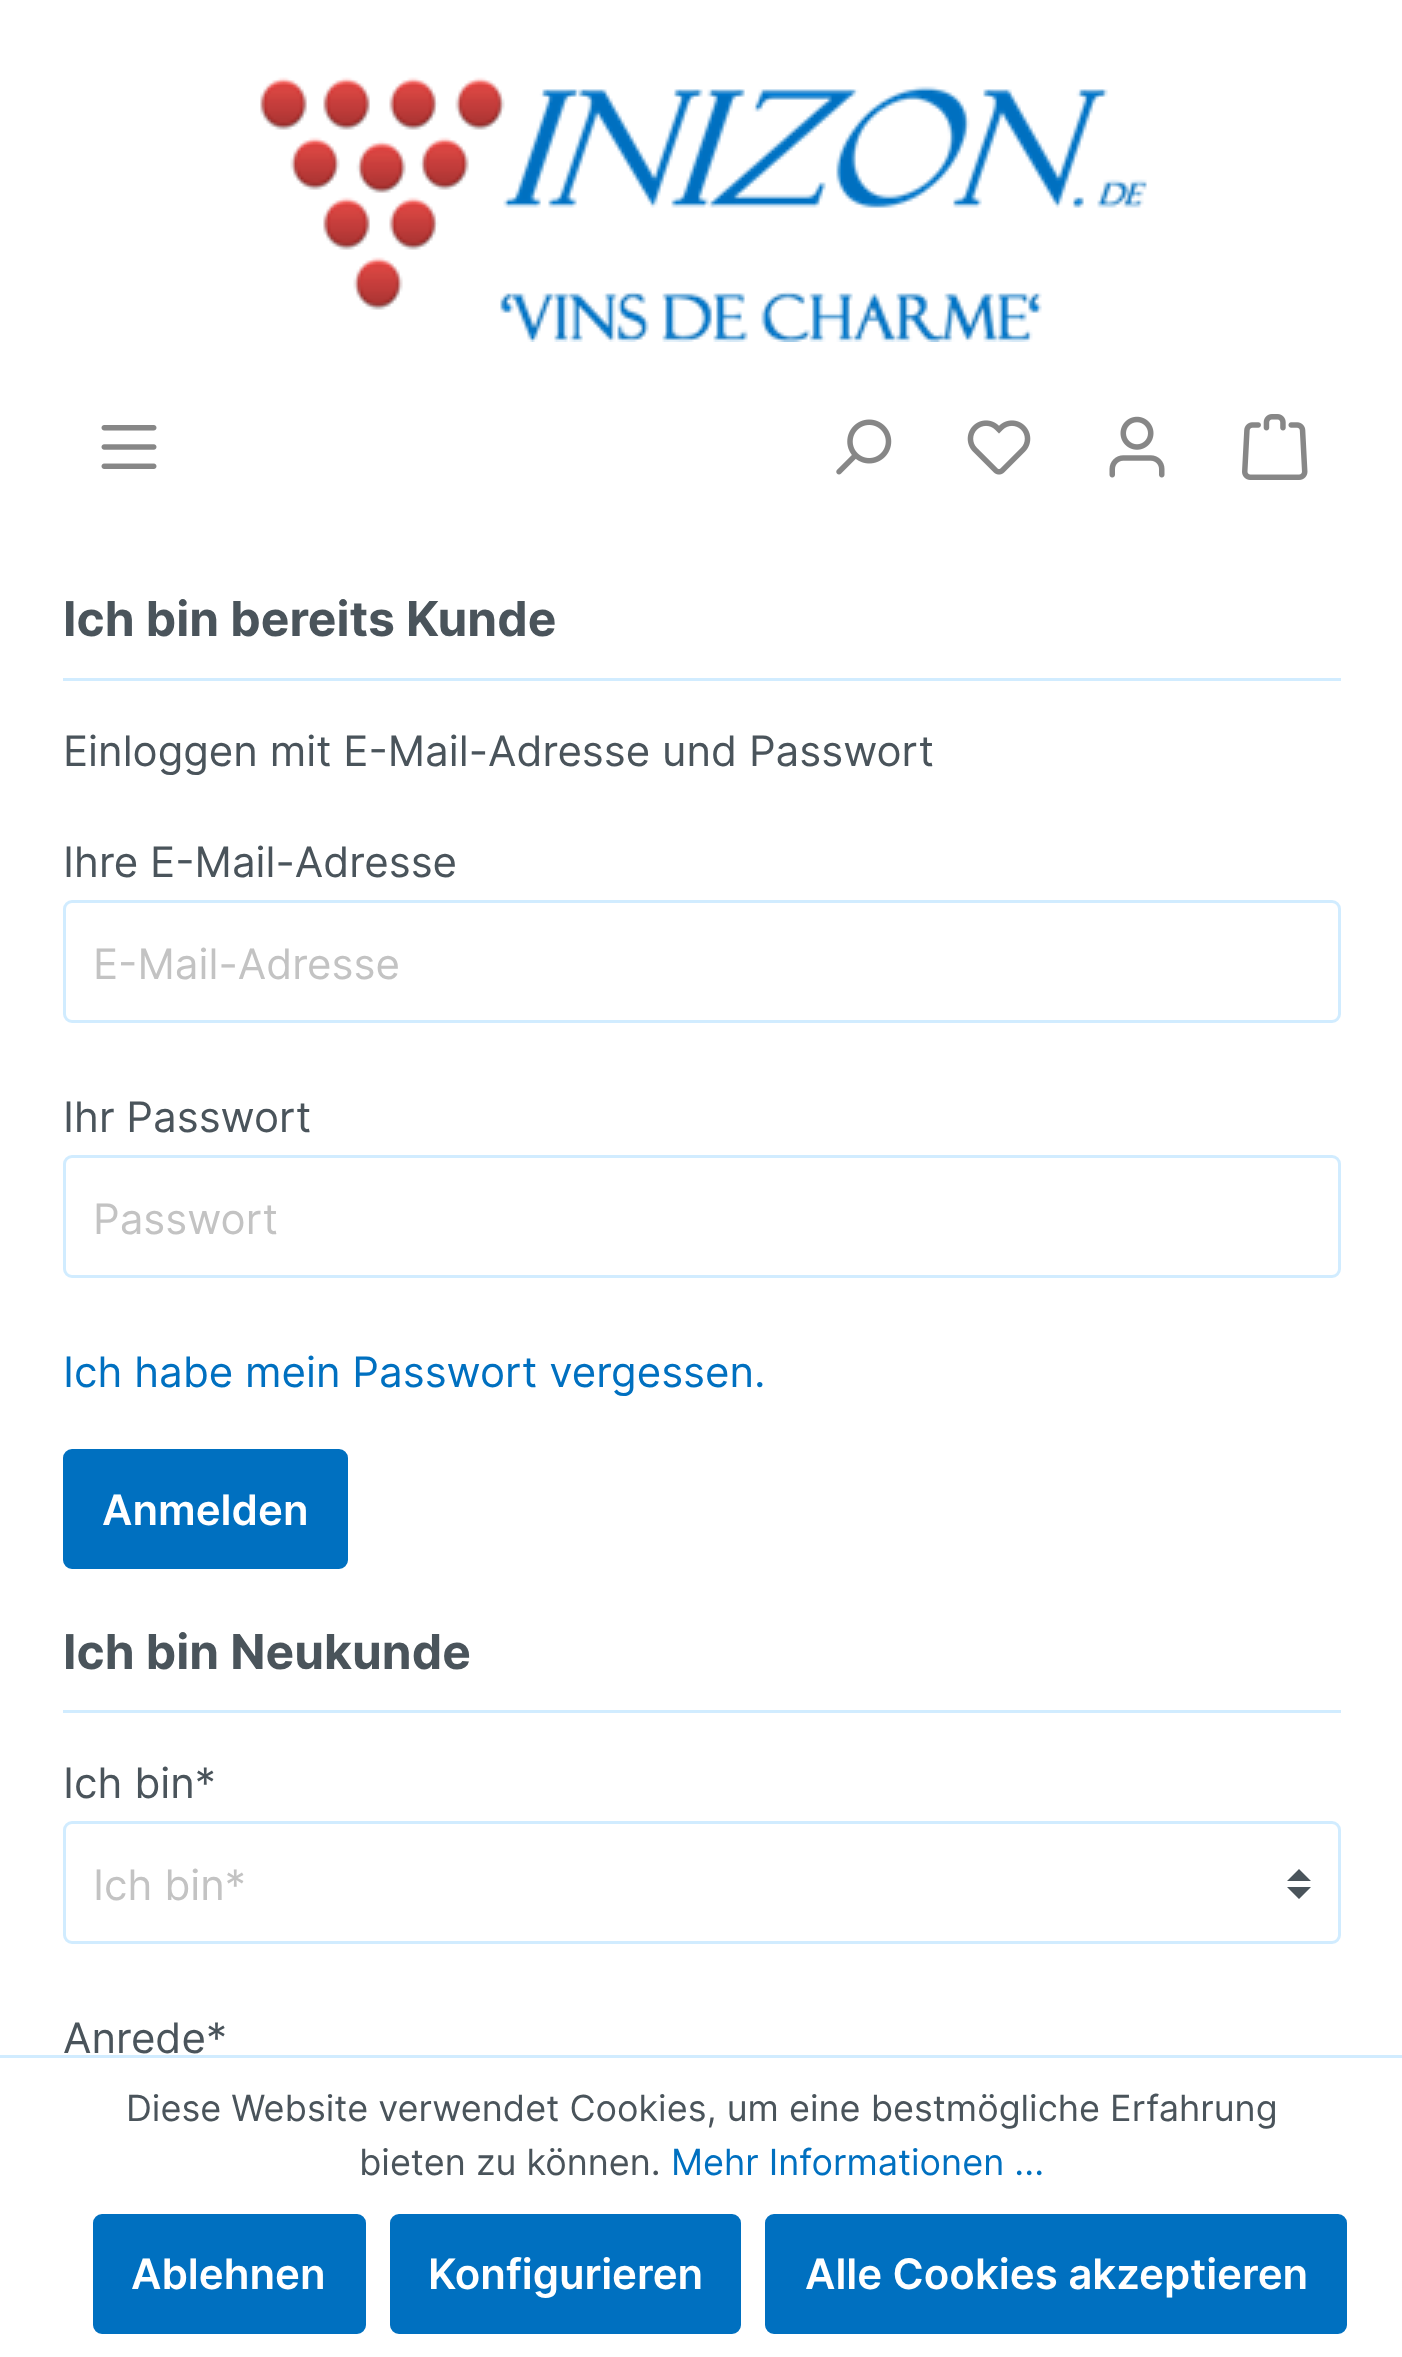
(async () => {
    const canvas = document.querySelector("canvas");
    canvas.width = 1402;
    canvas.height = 2357;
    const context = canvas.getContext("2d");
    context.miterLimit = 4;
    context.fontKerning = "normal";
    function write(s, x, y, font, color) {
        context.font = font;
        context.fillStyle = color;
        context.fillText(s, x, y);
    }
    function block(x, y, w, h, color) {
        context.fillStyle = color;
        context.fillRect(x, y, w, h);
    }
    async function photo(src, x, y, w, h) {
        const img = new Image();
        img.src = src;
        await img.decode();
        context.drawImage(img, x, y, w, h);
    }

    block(0, 0, 1402, 2357, "rgb(255, 255, 255)");
    await photo("media/1.png", 260, 77, 887, 265);
    await photo("media/2.png", 101, 425, 56, 44);
    await photo("media/3.png", 836, 419, 56, 56);
    await photo("media/4.png", 967, 420, 64, 55);
    await photo("media/5.png", 1109, 416, 56, 62);
    await photo("media/6.png", 1242, 414, 66, 66);
    block(63, 678, 1278, 3, "rgb(209, 236, 255)");
    write("Ich bin bereits Kunde", 63, 636, "bold 48px Inter", "rgb(74, 84, 91)");
    write("Einloggen mit E-Mail-Adresse und Passwort", 63, 766, "42px Inter", "rgb(74, 84, 91)");
    write("Ihre E-Mail-Adresse", 63, 877, "42px Inter", "rgb(74, 84, 91)");
    context.beginPath();
    context.roundRect(64.5, 901.5, 1275, 120, 7.5);
    context.strokeStyle = "rgb(209, 236, 255)";
    context.lineWidth = 3;
    context.stroke();
    write("E-Mail-Adresse", 93, 979, "42px Inter", "rgb(195, 195, 195)");
    write("Ihr Passwort", 63, 1132, "42px Inter", "rgb(74, 84, 91)");
    context.beginPath();
    context.roundRect(64.5, 1156.5, 1275, 120, 7.5);
    context.stroke();
    write("Passwort", 93, 1234, "42px Inter", "rgb(195, 195, 195)");
    write("Ich habe mein Passwort vergessen.", 63, 1387, "42px Inter", "rgb(0, 112, 192)");
    context.beginPath();
    context.roundRect(64.5, 1450.5, 282, 117, 7.5);
    context.fill();
    context.strokeStyle = "rgb(0, 112, 192)";
    context.stroke();
    write("Anmelden", 102, 1525, "600 42px Inter", "rgb(255, 255, 255)");
    block(63, 1710, 1278, 3, "rgb(209, 236, 255)");
    write("Ich bin Neukunde", 63, 1669, "bold 48px Inter", "rgb(74, 84, 91)");
    write("Ich bin*", 63, 1798, "42px Inter", "rgb(74, 84, 91)");
    context.beginPath();
    context.moveTo(1299, 1869);
    context.lineTo(1287, 1881);
    context.lineTo(1311, 1881);
    context.closePath();
    context.moveTo(1299, 1899);
    context.lineTo(1287, 1887);
    context.lineTo(1311, 1887);
    context.closePath();
    context.fill();
    context.beginPath();
    context.roundRect(64.5, 1822.5, 1275, 120, 7.5);
    context.strokeStyle = "rgb(209, 236, 255)";
    context.stroke();
    write("Ich bin*", 93, 1900, "42px Inter", "rgb(195, 195, 195)");
    write("Anrede*", 63, 2053, "42px Inter", "rgb(74, 84, 91)");
    block(0, 2055, 1402, 3, "rgb(209, 236, 255)");
    write("Diese Website verwendet Cookies, um eine bestmögliche Erfahrung", 126, 2121, "36px Inter", "rgb(74, 84, 91)");
    write("bieten zu können.", 359, 2175, "36px Inter", "rgb(74, 84, 91)");
    write("Mehr Informationen ...", 671, 2175, "36px Inter", "rgb(0, 112, 192)");
    context.beginPath();
    context.roundRect(94.5, 2215.5, 270, 117, 7.5);
    context.fill();
    context.strokeStyle = "rgb(0, 112, 192)";
    context.stroke();
    write("Ablehnen", 131, 2289, "600 42px Inter", "rgb(255, 255, 255)");
    context.fillStyle = "rgb(0, 112, 192)";
    context.beginPath();
    context.roundRect(391.5, 2215.5, 348, 117, 7.5);
    context.fill();
    context.stroke();
    write("Konfigurieren", 428, 2289, "600 42px Inter", "rgb(255, 255, 255)");
    context.fillStyle = "rgb(0, 112, 192)";
    context.beginPath();
    context.roundRect(766.5, 2215.5, 579, 117, 7.5);
    context.fill();
    context.stroke();
    write("Alle Cookies akzeptieren", 805, 2289, "600 42px Inter", "rgb(255, 255, 255)");
})();
